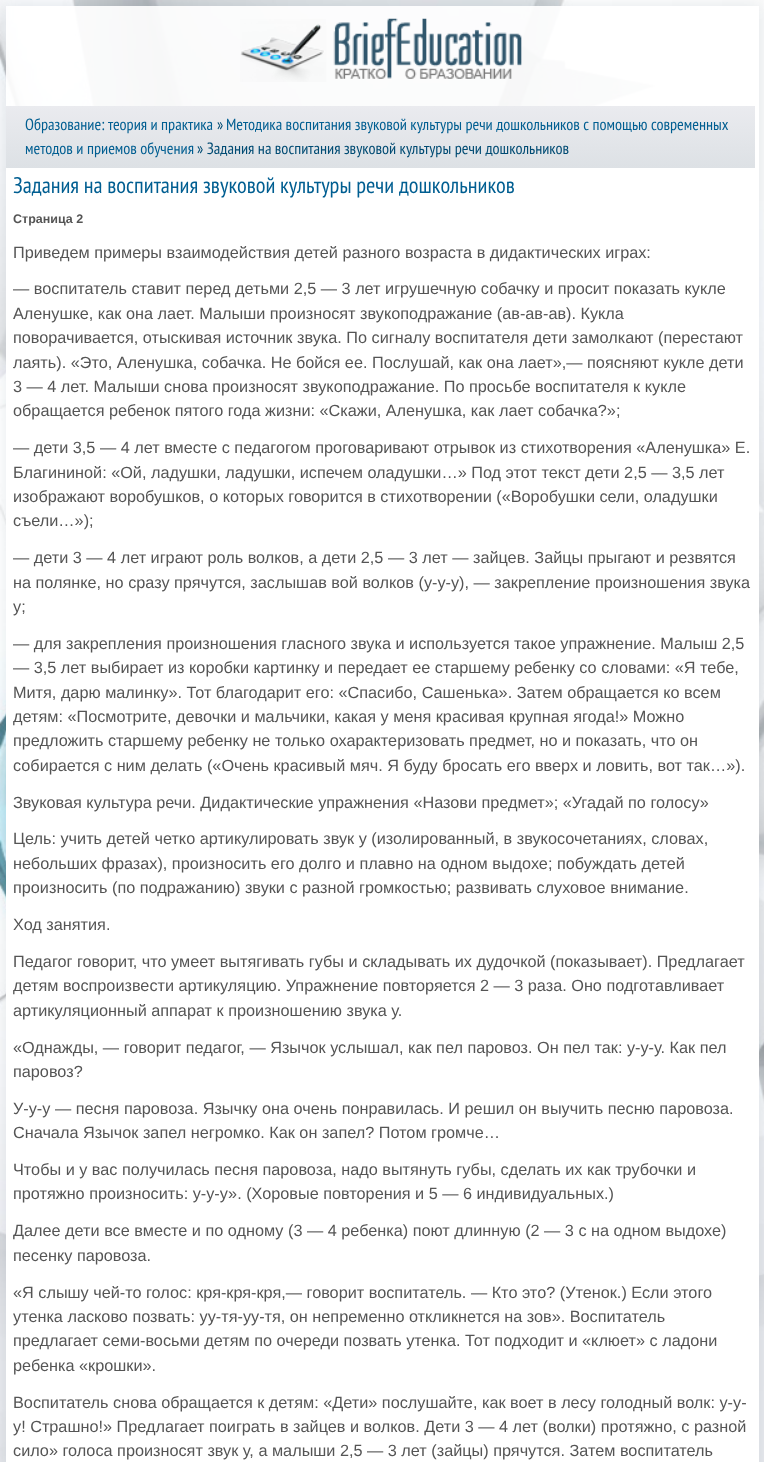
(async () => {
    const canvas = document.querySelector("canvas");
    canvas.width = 764;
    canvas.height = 1462;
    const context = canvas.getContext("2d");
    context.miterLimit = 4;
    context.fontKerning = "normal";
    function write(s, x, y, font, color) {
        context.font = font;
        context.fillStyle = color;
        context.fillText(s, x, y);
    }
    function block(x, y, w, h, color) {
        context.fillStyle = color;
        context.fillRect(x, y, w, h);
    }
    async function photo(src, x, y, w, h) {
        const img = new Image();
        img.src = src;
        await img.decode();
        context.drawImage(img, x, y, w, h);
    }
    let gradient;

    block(0, 0, 764, 1462, "rgb(255, 255, 255)");
    await photo("media/1.png", 0, 0, 764, 1462);
    context.save();
    context.beginPath();
    context.moveTo(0, 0);
    context.lineTo(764, 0);
    context.lineTo(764, 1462);
    context.lineTo(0, 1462);
    context.closePath();
    context.moveTo(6, 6);
    context.lineTo(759, 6);
    context.lineTo(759, 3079);
    context.lineTo(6, 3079);
    context.closePath();
    context.clip("evenodd");
    context.fillStyle = "rgba(0, 46, 81, 0.1)";
    context.filter = "blur(8px)";
    context.beginPath();
    context.rect(6, 6, 753, 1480);
    context.fill();
    context.filter = "none";
    context.restore();
    block(6, 6, 753, 162, "rgba(255, 255, 255, 0.9)");
    await photo("media/2.png", 240, 18, 282, 64);
    gradient = context.createLinearGradient(381, 106, 381, 168);
    gradient.addColorStop(0, "rgb(234, 235, 239)");
    gradient.addColorStop(1, "rgb(221, 225, 229)");
    context.fillStyle = gradient;
    context.fillRect(6, 106, 749, 62);
    write("Образование: теория и практика", 25, 130, "16.25px PT Sans Narrow", "rgb(0, 94, 145)");
    write("»", 217, 130, "16.25px PT Sans Narrow", "rgb(0, 75, 115)");
    write("Методика воспитания звуковой культуры речи дошкольников с помощью современных", 226, 130, "16.25px PT Sans Narrow", "rgb(0, 94, 145)");
    write("методов и приемов обучения", 25, 154, "16.25px PT Sans Narrow", "rgb(0, 94, 145)");
    write("» Задания на воспитания звуковой культуры речи дошкольников", 197, 154, "16.25px PT Sans Narrow", "rgb(0, 75, 115)");
    block(6, 168, 753, 1294, "rgb(255, 255, 255)");
    write("Задания на воспитания звуковой культуры речи дошкольников", 13, 193, "22.5px PT Sans Narrow", "rgb(0, 94, 145)");
    write("Страница 2", 13, 223, "bold 12.5px Liberation Sans", "rgb(85, 85, 85)");
    write("Приведем примеры взаимодействия детей разного возраста в дидактических играх:", 13, 258, "16.25px Liberation Sans", "rgb(85, 85, 85)");
    write("— воспитатель ставит перед детьми 2,5 — 3 лет игрушечную собачку и просит показать кукле", 13, 294, "16.25px Liberation Sans", "rgb(85, 85, 85)");
    write("Аленушке, как она лает. Малыши произносят звукоподражание (ав-ав-ав). Кукла", 13, 319, "16.25px Liberation Sans", "rgb(85, 85, 85)");
    write("поворачивается, отыскивая источник звука. По сигналу воспитателя дети замолкают (перестают", 13, 343, "16.25px Liberation Sans", "rgb(85, 85, 85)");
    write("лаять). «Это, Аленушка, собачка. Не бойся ее. Послушай, как она лает»,— поясняют кукле дети", 13, 368, "16.25px Liberation Sans", "rgb(85, 85, 85)");
    write("3 — 4 лет. Малыши снова произносят звукоподражание. По просьбе воспитателя к кукле", 13, 392, "16.25px Liberation Sans", "rgb(85, 85, 85)");
    write("обращается ребенок пятого года жизни: «Скажи, Аленушка, как лает собачка?»;", 13, 416, "16.25px Liberation Sans", "rgb(85, 85, 85)");
    write("— дети 3,5 — 4 лет вместе с педагогом проговаривают отрывок из стихотворения «Аленушка» Е.", 13, 453, "16.25px Liberation Sans", "rgb(85, 85, 85)");
    write("Благининой: «Ой, ладушки, ладушки, испечем оладушки…» Под этот текст дети 2,5 — 3,5 лет", 13, 478, "16.25px Liberation Sans", "rgb(85, 85, 85)");
    write("изображают воробушков, о которых говорится в стихотворении («Воробушки сели, оладушки", 13, 502, "16.25px Liberation Sans", "rgb(85, 85, 85)");
    write("съели…»);", 13, 526, "16.25px Liberation Sans", "rgb(85, 85, 85)");
    write("— дети 3 — 4 лет играют роль волков, а дети 2,5 — 3 лет — зайцев. Зайцы прыгают и резвятся", 13, 563, "16.25px Liberation Sans", "rgb(85, 85, 85)");
    write("на полянке, но сразу прячутся, заслышав вой волков (у-у-у), — закрепление произношения звука", 13, 588, "16.25px Liberation Sans", "rgb(85, 85, 85)");
    write("у;", 13, 612, "16.25px Liberation Sans", "rgb(85, 85, 85)");
    write("— для закрепления произношения гласного звука и используется такое упражнение. Малыш 2,5", 13, 649, "16.25px Liberation Sans", "rgb(85, 85, 85)");
    write("— 3,5 лет выбирает из коробки картинку и передает ее старшему ребенку со словами: «Я тебе,", 13, 673, "16.25px Liberation Sans", "rgb(85, 85, 85)");
    write("Митя, дарю малинку». Тот благодарит его: «Спасибо, Сашенька». Затем обращается ко всем", 13, 698, "16.25px Liberation Sans", "rgb(85, 85, 85)");
    context.save();
    context.beginPath();
    context.rect(13, 174, 740, 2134);
    context.clip();
    write("детям: «Посмотрите, девочки и мальчики, какая у меня красивая крупная ягода!» Можно", 13, 722, "16.25px Liberation Sans", "rgb(85, 85, 85)");
    context.restore();
    write("предложить старшему ребенку не только охарактеризовать предмет, но и показать, что он", 13, 746, "16.25px Liberation Sans", "rgb(85, 85, 85)");
    write("собирается с ним делать («Очень красивый мяч. Я буду бросать его вверх и ловить, вот так…»).", 13, 771, "16.25px Liberation Sans", "rgb(85, 85, 85)");
    write("Звуковая культура речи. Дидактические упражнения «Назови предмет»; «Угадай по голосу»", 13, 808, "16.25px Liberation Sans", "rgb(85, 85, 85)");
    write("Цель: учить детей четко артикулировать звук у (изолированный, в звукосочетаниях, словах,", 13, 844, "16.25px Liberation Sans", "rgb(85, 85, 85)");
    write("небольших фразах), произносить его долго и плавно на одном выдохе; побуждать детей", 13, 869, "16.25px Liberation Sans", "rgb(85, 85, 85)");
    write("произносить (по подражанию) звуки с разной громкостью; развивать слуховое внимание.", 13, 893, "16.25px Liberation Sans", "rgb(85, 85, 85)");
    write("Ход занятия.", 13, 930, "16.25px Liberation Sans", "rgb(85, 85, 85)");
    write("Педагог говорит, что умеет вытягивать губы и складывать их дудочкой (показывает). Предлагает", 13, 967, "16.25px Liberation Sans", "rgb(85, 85, 85)");
    context.save();
    context.beginPath();
    context.rect(13, 174, 740, 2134);
    context.clip();
    write("детям воспроизвести артикуляцию. Упражнение повторяется 2 — 3 раза. Оно подготавливает", 13, 991, "16.25px Liberation Sans", "rgb(85, 85, 85)");
    context.restore();
    write("артикуляционный аппарат к произношению звука у.", 13, 1016, "16.25px Liberation Sans", "rgb(85, 85, 85)");
    write("«Однажды, — говорит педагог, — Язычок услышал, как пел паровоз. Он пел так: у-у-у. Как пел", 13, 1053, "16.25px Liberation Sans", "rgb(85, 85, 85)");
    write("паровоз?", 13, 1077, "16.25px Liberation Sans", "rgb(85, 85, 85)");
    write("У-у-у — песня паровоза. Язычку она очень понравилась. И решил он выучить песню паровоза.", 13, 1114, "16.25px Liberation Sans", "rgb(85, 85, 85)");
    write("Сначала Язычок запел негромко. Как он запел? Потом громче…", 13, 1138, "16.25px Liberation Sans", "rgb(85, 85, 85)");
    write("Чтобы и у вас получилась песня паровоза, надо вытянуть губы, сделать их как трубочки и", 13, 1175, "16.25px Liberation Sans", "rgb(85, 85, 85)");
    write("протяжно произносить: у-у-у». (Хоровые повторения и 5 — 6 индивидуальных.)", 13, 1199, "16.25px Liberation Sans", "rgb(85, 85, 85)");
    context.save();
    context.beginPath();
    context.rect(13, 174, 740, 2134);
    context.clip();
    write("Далее дети все вместе и по одному (3 — 4 ребенка) поют длинную (2 — 3 с на одном выдохе)", 13, 1236, "16.25px Liberation Sans", "rgb(85, 85, 85)");
    context.restore();
    write("песенку паровоза.", 13, 1261, "16.25px Liberation Sans", "rgb(85, 85, 85)");
    write("«Я слышу чей-то голос: кря-кря-кря,— говорит воспитатель. — Кто это? (Утенок.) Если этого", 13, 1298, "16.25px Liberation Sans", "rgb(85, 85, 85)");
    write("утенка ласково позвать: уу-тя-уу-тя, он непременно откликнется на зов». Воспитатель", 13, 1322, "16.25px Liberation Sans", "rgb(85, 85, 85)");
    write("предлагает семи-восьми детям по очереди позвать утенка. Тот подходит и «клюет» с ладони", 13, 1346, "16.25px Liberation Sans", "rgb(85, 85, 85)");
    write("ребенка «крошки».", 13, 1371, "16.25px Liberation Sans", "rgb(85, 85, 85)");
    write("Воспитатель снова обращается к детям: «Дети» послушайте, как воет в лесу голодный волк: у-у-", 13, 1408, "16.25px Liberation Sans", "rgb(85, 85, 85)");
    write("у! Страшно!» Предлагает поиграть в зайцев и волков. Дети 3 — 4 лет (волки) протяжно, с разной", 13, 1432, "16.25px Liberation Sans", "rgb(85, 85, 85)");
    write("сило» голоса произносят звук у, а малыши 2,5 — 3 лет (зайцы) прячутся. Затем воспитатель", 13, 1456, "16.25px Liberation Sans", "rgb(85, 85, 85)");
})();
